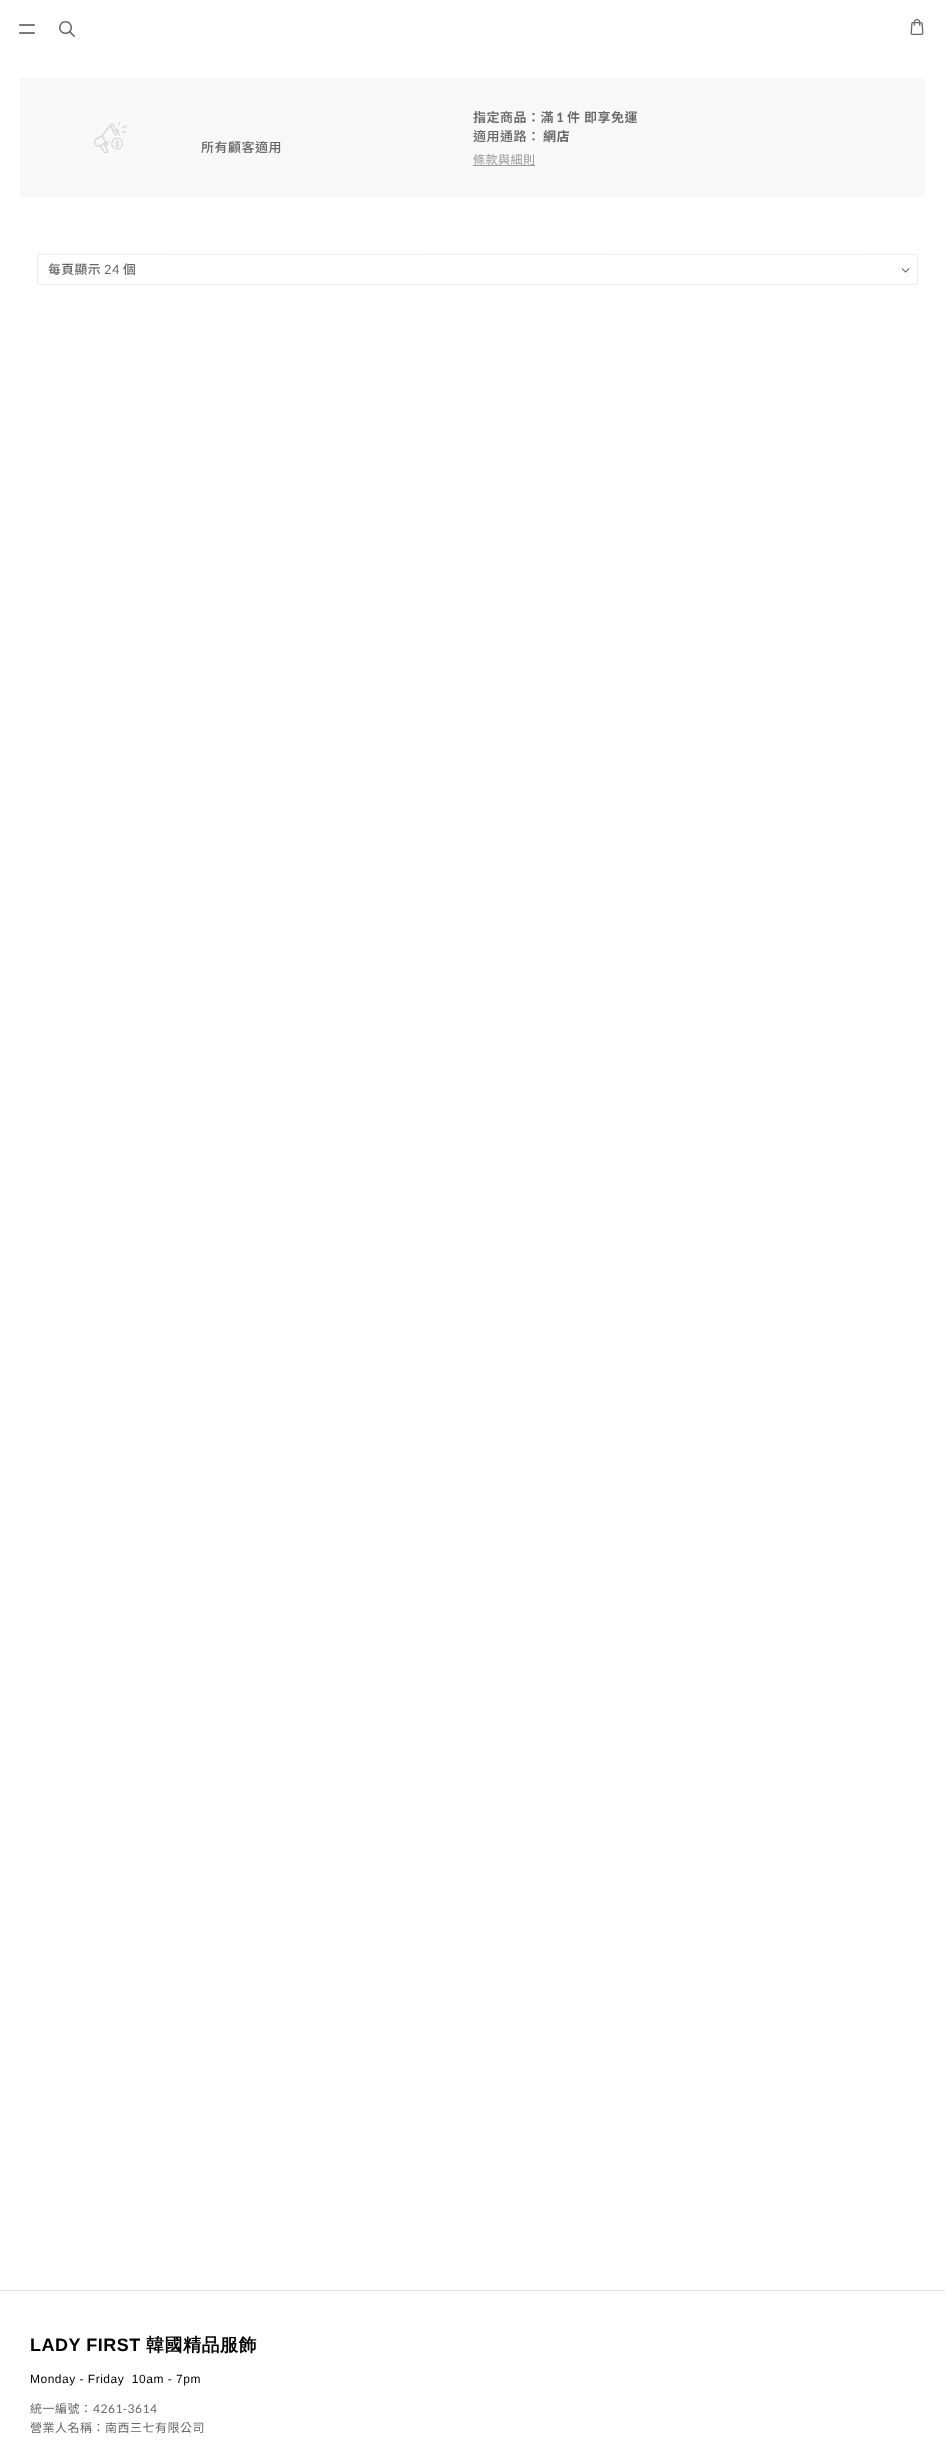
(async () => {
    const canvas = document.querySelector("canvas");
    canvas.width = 945;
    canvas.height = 2442;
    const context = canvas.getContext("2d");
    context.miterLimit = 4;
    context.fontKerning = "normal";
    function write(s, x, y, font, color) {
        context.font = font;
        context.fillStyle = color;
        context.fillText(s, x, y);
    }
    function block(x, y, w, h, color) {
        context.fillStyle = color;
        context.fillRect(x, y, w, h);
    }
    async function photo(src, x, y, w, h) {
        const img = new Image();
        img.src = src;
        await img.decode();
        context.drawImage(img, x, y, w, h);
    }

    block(0, 0, 945, 2442, "rgb(255, 255, 255)");
    await photo("media/1.png", 19, 24, 16, 10);
    await photo("media/2.png", 59, 21, 16, 16);
    await photo("media/3.png", 910, 19, 14, 16);
    block(20, 78, 905, 119, "rgb(248, 248, 248)");
    await photo("media/4.png", 94, 122, 33, 31);
    context.letterSpacing = "0.5px";
    write("所有顧客適用", 201, 152, "500 13px Noto Sans TC", "rgb(102, 102, 102)");
    write("指定商品：滿", 473, 122, "600 13px Noto Sans TC", "rgb(102, 102, 102)");
    write("1", 556, 122, "bold 13px Lato", "rgb(102, 102, 102)");
    write("件 即享免運", 567, 122, "600 13px Noto Sans TC", "rgb(102, 102, 102)");
    write("適用通路：", 473, 141, "500 13px Noto Sans TC", "rgb(102, 102, 102)");
    write("網店", 543, 141, "bold 13px Noto Sans TC", "rgb(102, 102, 102)");
    write("條款與細則", 473, 164, "12px Noto Sans TC", "rgb(153, 153, 153)");
    block(473, 165, 62, 1, "rgb(153, 153, 153)");
    context.beginPath();
    context.roundRect(37.4, 254.4, 880.2, 30.2, 1.6);
    context.strokeStyle = "rgb(228, 228, 228)";
    context.lineWidth = 0.8;
    context.stroke();
    write("每頁顯示", 48, 274, "500 12.75px Noto Sans TC", "rgb(102, 102, 102)");
    write("24", 104, 274, "12.75px Lato", "rgb(102, 102, 102)");
    write("個", 123, 274, "500 12.75px Noto Sans TC", "rgb(102, 102, 102)");
    await photo("media/5.png", 901, 268, 9, 5);
    block(0, 2290, 945, 1, "rgb(221, 221, 221)");
    write("LADY FIRST", 30, 2351, "bold 18px Liberation Sans", "rgb(0, 0, 0)");
    write("韓國精品服飾", 146, 2351, "bold 18px WenQuanYi Zen Hei", "rgb(0, 0, 0)");
    write("Monday - Friday  10am - 7pm", 30, 2383, "12px Liberation Sans", "rgb(0, 0, 0)");
    write("統一編號：", 30, 2413, "12px Noto Sans TC", "rgb(102, 102, 102)");
    write("4261-3614", 93, 2413, "12px Lato", "rgb(102, 102, 102)");
    write("營業人名稱：南西三七有限公司", 30, 2432, "12px Noto Sans TC", "rgb(102, 102, 102)");
})();
